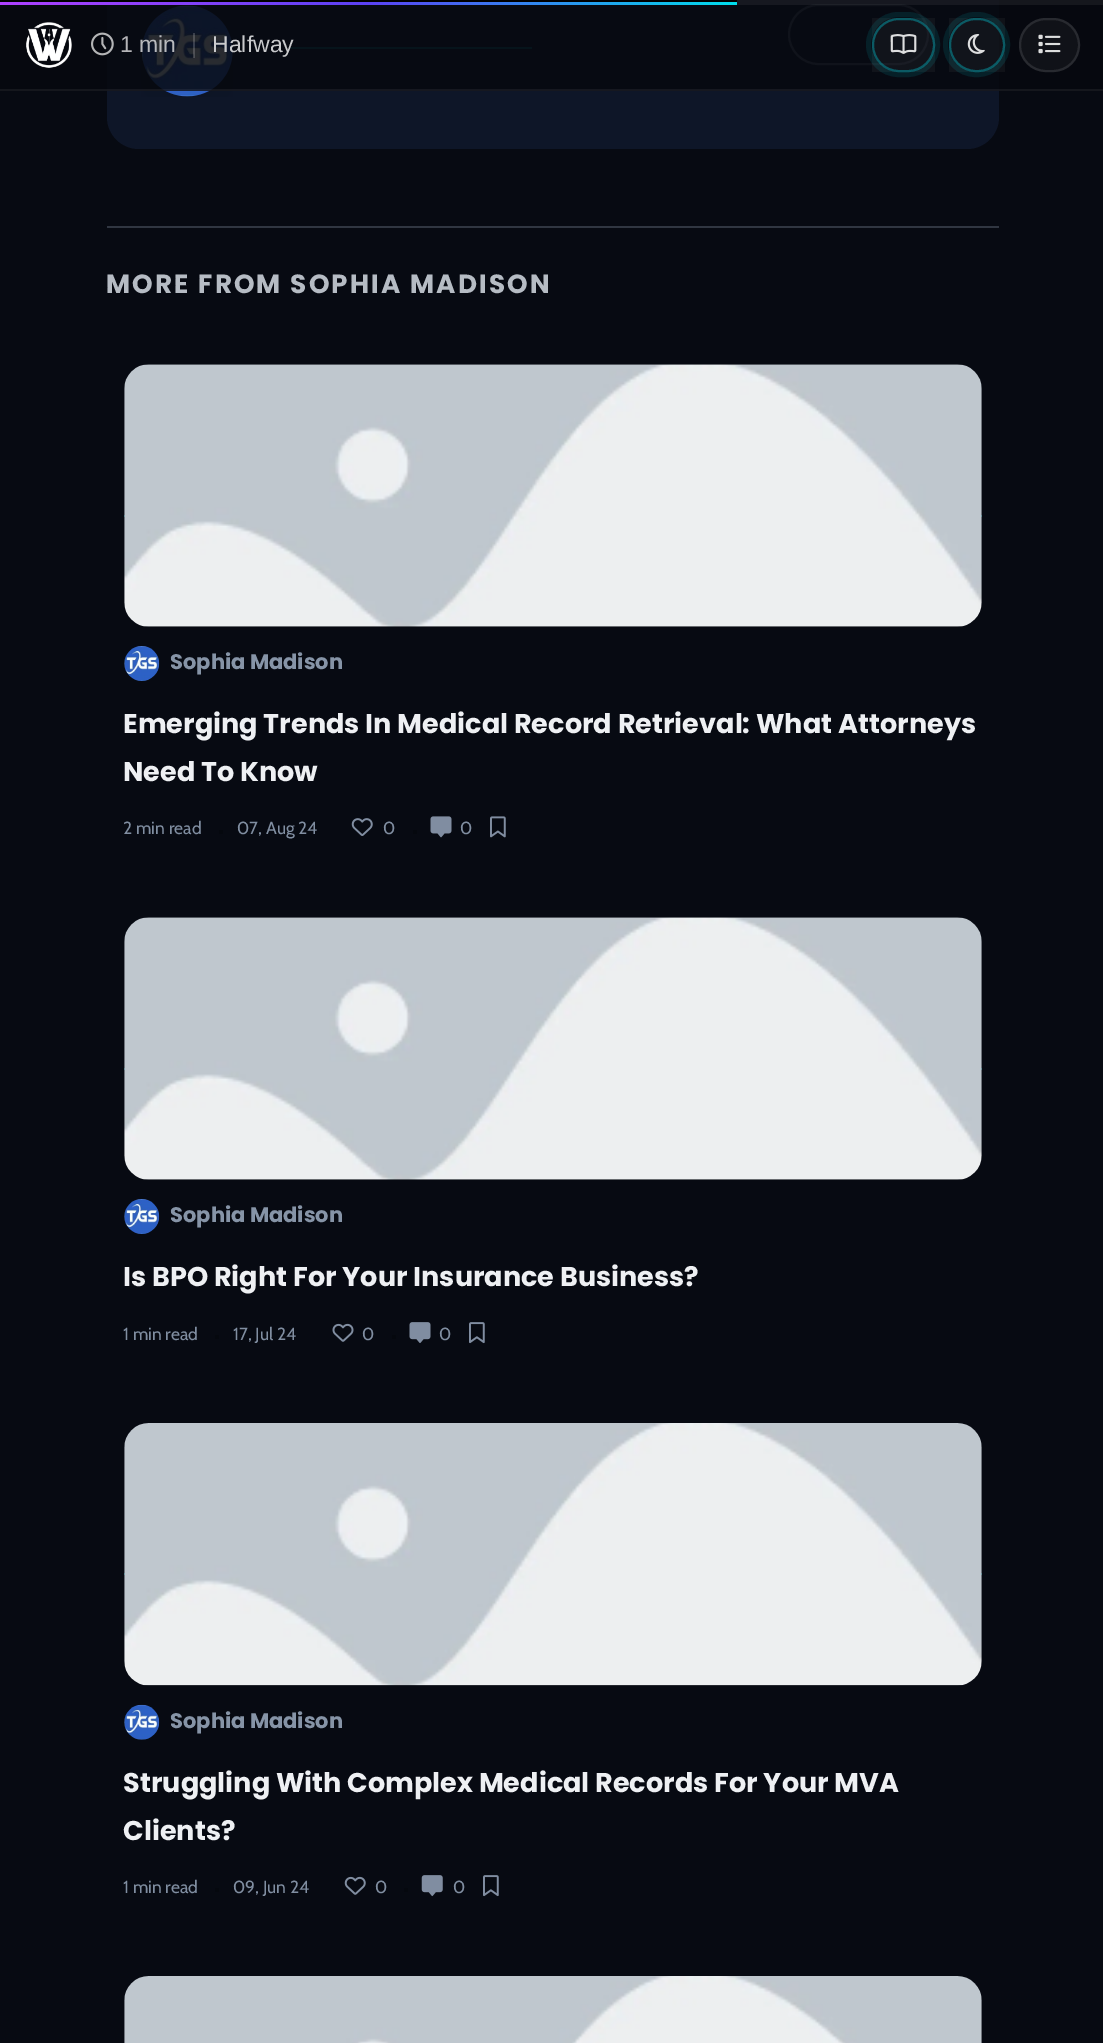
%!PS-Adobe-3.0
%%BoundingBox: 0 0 1103 2043
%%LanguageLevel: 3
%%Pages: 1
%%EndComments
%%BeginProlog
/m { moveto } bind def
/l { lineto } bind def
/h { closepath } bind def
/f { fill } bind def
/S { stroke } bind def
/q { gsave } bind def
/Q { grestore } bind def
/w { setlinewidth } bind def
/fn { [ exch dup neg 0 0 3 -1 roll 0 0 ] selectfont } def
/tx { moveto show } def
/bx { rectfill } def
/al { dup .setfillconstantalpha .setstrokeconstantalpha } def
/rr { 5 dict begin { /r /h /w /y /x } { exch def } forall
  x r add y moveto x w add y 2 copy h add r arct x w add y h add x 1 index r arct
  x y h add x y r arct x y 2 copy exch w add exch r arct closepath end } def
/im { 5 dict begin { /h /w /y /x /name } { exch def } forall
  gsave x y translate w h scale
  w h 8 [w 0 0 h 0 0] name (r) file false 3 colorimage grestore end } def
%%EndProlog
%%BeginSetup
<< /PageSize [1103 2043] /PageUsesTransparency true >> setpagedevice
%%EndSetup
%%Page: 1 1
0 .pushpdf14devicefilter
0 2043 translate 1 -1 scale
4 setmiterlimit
0.027 0.039 0.071 setrgbcolor
0 0 1103 2043 bx
0.055 0.086 0.157 setrgbcolor
107 -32 892 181 32 rr f
(image5.raw) 141 5 92 92 im
0.035 0.361 0.424 setrgbcolor
289 47 243 2 bx
0.294 0.337 0.416 setrgbcolor
2 w
789 5 139 59 29.5 rr S
0.86 al
0.024 0.031 0.055 setrgbcolor
0 0 1103 91 bx
0.06 al
1 setgray
737 0 366 5 bx
1 al
q 0 2 m 737 2 l 737 5 l 0 5 l h clip newpath
<< /ShadingType 2 /ColorSpace /DeviceRGB /Coords [0 2.6 737 2.6] /Extend [true true] /Function << /FunctionType 3 /Domain [0 1] /Functions [<< /FunctionType 2 /Domain [0 1] /C0 [0.686 0.251 1] /C1 [0.357 0.259 0.953] /N 1 >> << /FunctionType 2 /Domain [0 1] /C0 [0.357 0.259 0.953] /C1 [0 0.867 0.922] /N 1 >>] /Bounds [0.5] /Encode [0 1 0 1] >> >> shfill Q
0 setgray
0 0 737 2 bx
0.06 al
1 setgray
0 89 1103 2 bx
1 al
(image0.raw) 26 22 46 46 im
(image1.raw) 91 32 23 24 im
/LiberationSans-Regular 23 fn
0.71 0.71 0.722 setrgbcolor
(1) 120 52 tx
0.722 0.729 0.745 setrgbcolor
(min) 139 52 tx
0.18 al
1 setgray
193 33 2 25 bx
1 al
0.788 0.792 0.8 setrgbcolor
(Halfway) 212 52 tx
0.1 al
0 0.867 0.922 setrgbcolor
5 w
868.5 14.5 69 60 30 rr S
0.04 al
1 setgray
872 18 63 54 bx
0.35 al
0 0.867 0.922 setrgbcolor
2 w
873 19 61 52 26 rr S
1 al
(image2.raw) 890 34 27 20 im
0.1 al
5 w
945.5 14.5 62 60 30 rr S
0.04 al
1 setgray
949 18 56 54 bx
0.35 al
0 0.867 0.922 setrgbcolor
2 w
950 19 54 52 26 rr S
1 al
(image3.raw) 967 34 18 20 im
0.063 0.071 0.094 setrgbcolor
1019 18 61 54 27 rr f
0.1 al
1 setgray
1020 19 59 52 26 rr S
1 al
(image4.raw) 1038 34 23 20 im
0.188 0.212 0.255 setrgbcolor
107 226 892 2 bx
/Poppins-Bold 26.25 fn
0.714 0.737 0.769 setrgbcolor
106 293 m 2.1 0 (MORE FROM SOPHIA MADISON) ashow
0.02 0.329 0.369 setrgbcolor
124 515 858 2 bx
(image6.raw) 124 364 858 263 im
(image7.raw) 124 646 36 35 im
/Poppins-Bold 21 fn
0.525 0.58 0.655 setrgbcolor
(Sophia Madison) 170 669 tx
/Poppins-Bold 27.1 fn
0.933 0.941 0.953 setrgbcolor
(Emerging Trends In Medical Record Retrieval: What Attorneys) 123 733 tx
(Need To Know) 123 781 tx
/Cabin-Regular 17.5 fn
0.502 0.557 0.631 setrgbcolor
(2 min read) 123 834 tx
0.02 0.031 0.055 setrgbcolor
219 830 4 4 bx
0.502 0.557 0.631 setrgbcolor
(07, Aug 24) 237 834 tx
(image8.raw) 351 818 22 18 im
(0) 383 834 tx
0.02 0.031 0.055 setrgbcolor
413 830 4 4 bx
(image9.raw) 430 816 22 22 im
0.502 0.557 0.631 setrgbcolor
(0) 460 834 tx
(image10.raw) 490 816 16 22 im
0.02 0.329 0.369 setrgbcolor
124 1068 858 2 bx
(image6.raw) 124 917 858 263 im
(image7.raw) 124 1199 36 35 im
/Poppins-Bold 21 fn
0.525 0.58 0.655 setrgbcolor
(Sophia Madison) 170 1222 tx
/Poppins-Bold 27.1 fn
0.933 0.941 0.953 setrgbcolor
(Is BPO Right For Your Insurance Business?) 123 1286 tx
/Cabin-Regular 17.5 fn
0.502 0.557 0.631 setrgbcolor
(1 min read) 123 1340 tx
0.02 0.031 0.055 setrgbcolor
215 1335 4 4 bx
0.502 0.557 0.631 setrgbcolor
(17, Jul 24) 233 1340 tx
(image11.raw) 332 1323 22 19 im
(0) 362 1340 tx
0.02 0.031 0.055 setrgbcolor
392 1335 4 4 bx
(image12.raw) 409 1322 22 21 im
0.502 0.557 0.631 setrgbcolor
(0) 439 1340 tx
(image13.raw) 469 1322 16 22 im
0.02 0.329 0.369 setrgbcolor
124 1573 858 2 bx
(image14.raw) 124 1423 858 263 im
(image15.raw) 124 1704 36 36 im
/Poppins-Bold 21 fn
0.525 0.58 0.655 setrgbcolor
(Sophia Madison) 170 1728 tx
/Poppins-Bold 27.1 fn
0.933 0.941 0.953 setrgbcolor
(Struggling With Complex Medical Records For Your MVA) 123 1792 tx
(Clients?) 123 1840 tx
/Cabin-Regular 17.5 fn
0.502 0.557 0.631 setrgbcolor
(1 min read) 123 1893 tx
0.02 0.031 0.055 setrgbcolor
215 1888 4 4 bx
0.502 0.557 0.631 setrgbcolor
(09, Jun 24) 233 1893 tx
(image16.raw) 344 1876 22 19 im
(0) 375 1893 tx
0.02 0.031 0.055 setrgbcolor
404 1888 4 4 bx
(image17.raw) 421 1875 22 22 im
0.502 0.557 0.631 setrgbcolor
(0) 453 1893 tx
(image13.raw) 483 1875 16 22 im
(image18.raw) 124 1976 858 67 im
.poppdf14devicefilter showpage
%%EOF
